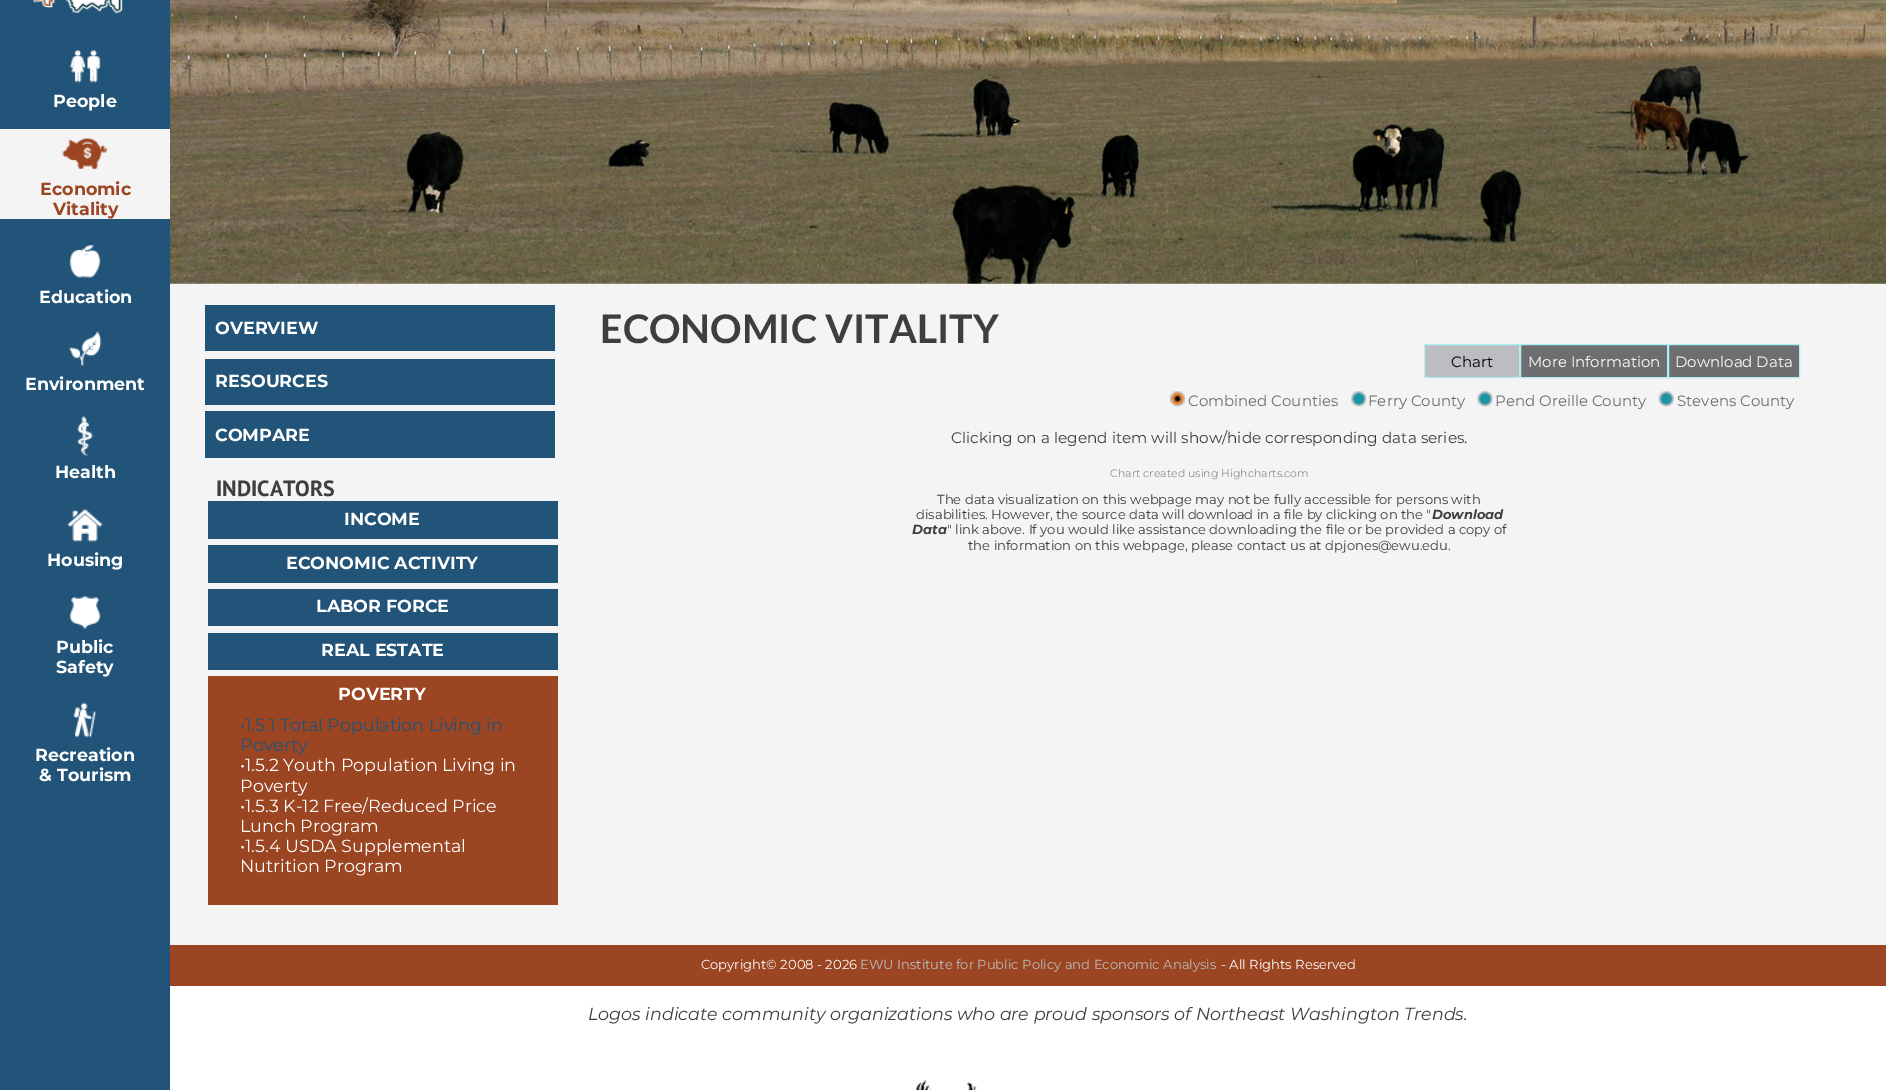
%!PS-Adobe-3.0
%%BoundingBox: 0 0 1886 1090
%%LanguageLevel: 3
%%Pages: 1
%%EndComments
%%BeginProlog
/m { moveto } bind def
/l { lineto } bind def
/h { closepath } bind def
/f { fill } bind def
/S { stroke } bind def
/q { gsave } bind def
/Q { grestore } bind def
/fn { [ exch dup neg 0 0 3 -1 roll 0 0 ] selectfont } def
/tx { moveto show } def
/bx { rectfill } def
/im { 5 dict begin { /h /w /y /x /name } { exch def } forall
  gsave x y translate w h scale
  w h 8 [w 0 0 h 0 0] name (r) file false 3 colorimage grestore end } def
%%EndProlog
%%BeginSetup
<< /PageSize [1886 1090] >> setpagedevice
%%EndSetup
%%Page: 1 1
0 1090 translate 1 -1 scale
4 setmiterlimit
0.957 setgray
0 0 1886 1090 bx
0.133 0.325 0.471 setrgbcolor
0 0 170 1090 bx
(image0.raw) 33 0 90 14 im
(image1.raw) 69 49 32 34 im
/Montserrat-Bold 17.5 fn
1 setgray
(People) 53 107 tx
0.957 setgray
0 129 170 90 bx
(image2.raw) 62 137 46 33 im
0.608 0.271 0.133 setrgbcolor
(Economic) 40 195 tx
(Vitality) 53 215 tx
(image3.raw) 69 244 32 34 im
1 setgray
(Education) 39 303 tx
(image4.raw) 68 331 34 36 im
(Environment) 25 390 tx
(image5.raw) 77 416 16 41 im
(Health) 55 478 tx
(image6.raw) 67 508 36 34 im
(Housing) 47 566 tx
(image7.raw) 69 596 32 33 im
(Public) 56 653 tx
(Safety) 56 673 tx
(image8.raw) 73 702 24 36 im
(Recreation) 35 761 tx
(& Tourism) 39 781 tx
(image9.raw) 170 0 1716 284 im
0.133 0.325 0.471 setrgbcolor
205 305 350 46 bx
1 setgray
(OVERVIEW) 215 334 tx
0.133 0.325 0.471 setrgbcolor
205 359 350 46 bx
1 setgray
(RESOURCES) 215 387 tx
0.133 0.325 0.471 setrgbcolor
205 411 350 47 bx
1 setgray
(COMPARE) 215 441 tx
/PTSans-Bold 22 fn
0.239 0.243 0.251 setrgbcolor
(INDICATORS) 216 496 tx
0.133 0.325 0.471 setrgbcolor
208 501 350 38 bx
/Montserrat-Bold 17.5 fn
1 setgray
(INCOME) 344 525 tx
0.133 0.325 0.471 setrgbcolor
208 545 350 38 bx
1 setgray
(ECONOMIC ACTIVITY) 286 569 tx
0.133 0.325 0.471 setrgbcolor
208 589 350 37 bx
1 setgray
(LABOR FORCE) 316 612 tx
0.133 0.325 0.471 setrgbcolor
208 633 350 37 bx
1 setgray
(REAL ESTATE) 321 656 tx
0.608 0.271 0.133 setrgbcolor
208 676 350 229 bx
1 setgray
(POVERTY) 338 700 tx
/Montserrat-Regular 17.5 fn
0.133 0.325 0.471 setrgbcolor
(•1.5.1 Total Population Living in) 240 731 tx
(Poverty) 240 751 tx
1 setgray
(•1.5.2 Youth Population Living in) 240 771 tx
(Poverty) 240 792 tx
(•1.5.3 K-12 Free/Reduced Price) 240 812 tx
(Lunch Program) 240 832 tx
(•1.5.4 USDA Supplemental) 240 852 tx
(Nutrition Program) 240 872 tx
/Lato-Bold 39.4 fn
0.239 0.243 0.251 setrgbcolor
(ECONOMIC VITALITY) 600 343 tx
0.733 0.741 0.753 setrgbcolor
1424.5 344.5 m 1519.5 344.5 l 1519.5 377.5 l 1424.5 377.5 l h q f Q
0.675 0.941 0.949 setrgbcolor
S
/Montserrat-Regular 15 fn
0 setgray
(Chart) 1451 367 tx
0.427 0.431 0.439 setrgbcolor
1520.5 344.5 m 1667.5 344.5 l 1667.5 377.5 l 1520.5 377.5 l h q f Q
0.675 0.941 0.949 setrgbcolor
S
1 setgray
(More Information) 1528 367 tx
0.427 0.431 0.439 setrgbcolor
1668.5 344.5 m 1799.5 344.5 l 1799.5 377.5 l 1668.5 377.5 l h q f Q
0.675 0.941 0.949 setrgbcolor
S
1 setgray
(Download Data) 1675 367 tx
(image10.raw) 1170 391 15 16 im
0.427 0.431 0.439 setrgbcolor
(Combined Counties) 1188 406 tx
(image11.raw) 1351 391 16 16 im
(Ferry County) 1368 406 tx
(image12.raw) 1477 391 16 16 im
(Pend Oreille County) 1495 406 tx
(image13.raw) 1658 391 16 16 im
(Stevens County) 1677 406 tx
/Montserrat-Regular 15.3 fn
0.239 0.243 0.251 setrgbcolor
(Clicking on a legend item will show/hide corresponding data series.) 951 443 tx
/Montserrat-Regular 10.9 fn
0.565 setgray
(Chart created using Highcharts.com) 1110 477 tx
/Montserrat-Regular 13.1 fn
0.239 0.243 0.251 setrgbcolor
(The data visualization on this webpage may not be fully accessible for persons with) 937 504 tx
(disabilities. However, the source data will download in a file by clicking on the ") 916 519 tx
/Montserrat-BoldItalic 13.1 fn
(Download) 1432 519 tx
(Data) 912 534 tx
/Montserrat-Regular 13.1 fn
(" link above. If you would like assistance downloading the file or be provided a copy of) 947 534 tx
(the information on this webpage, please contact us at dpjones@ewu.edu.) 968 550 tx
0.608 0.271 0.133 setrgbcolor
170 945 1716 41 bx
1 setgray
(Copyright© 2008 - 2026) 701 969 tx
0.733 setgray
(EWU Institute for Public Policy and Economic Analysis) 860 969 tx
1 setgray
(- All Rights Reserved) 1221 969 tx
170 986 1716 104 bx
/Montserrat-Italic 17.5 fn
0.239 0.243 0.251 setrgbcolor
(Logos indicate community organizations who are proud sponsors of Northeast Washington Trends.) 588 1020 tx
(image14.raw) 916 1080 61 10 im
showpage
%%EOF
